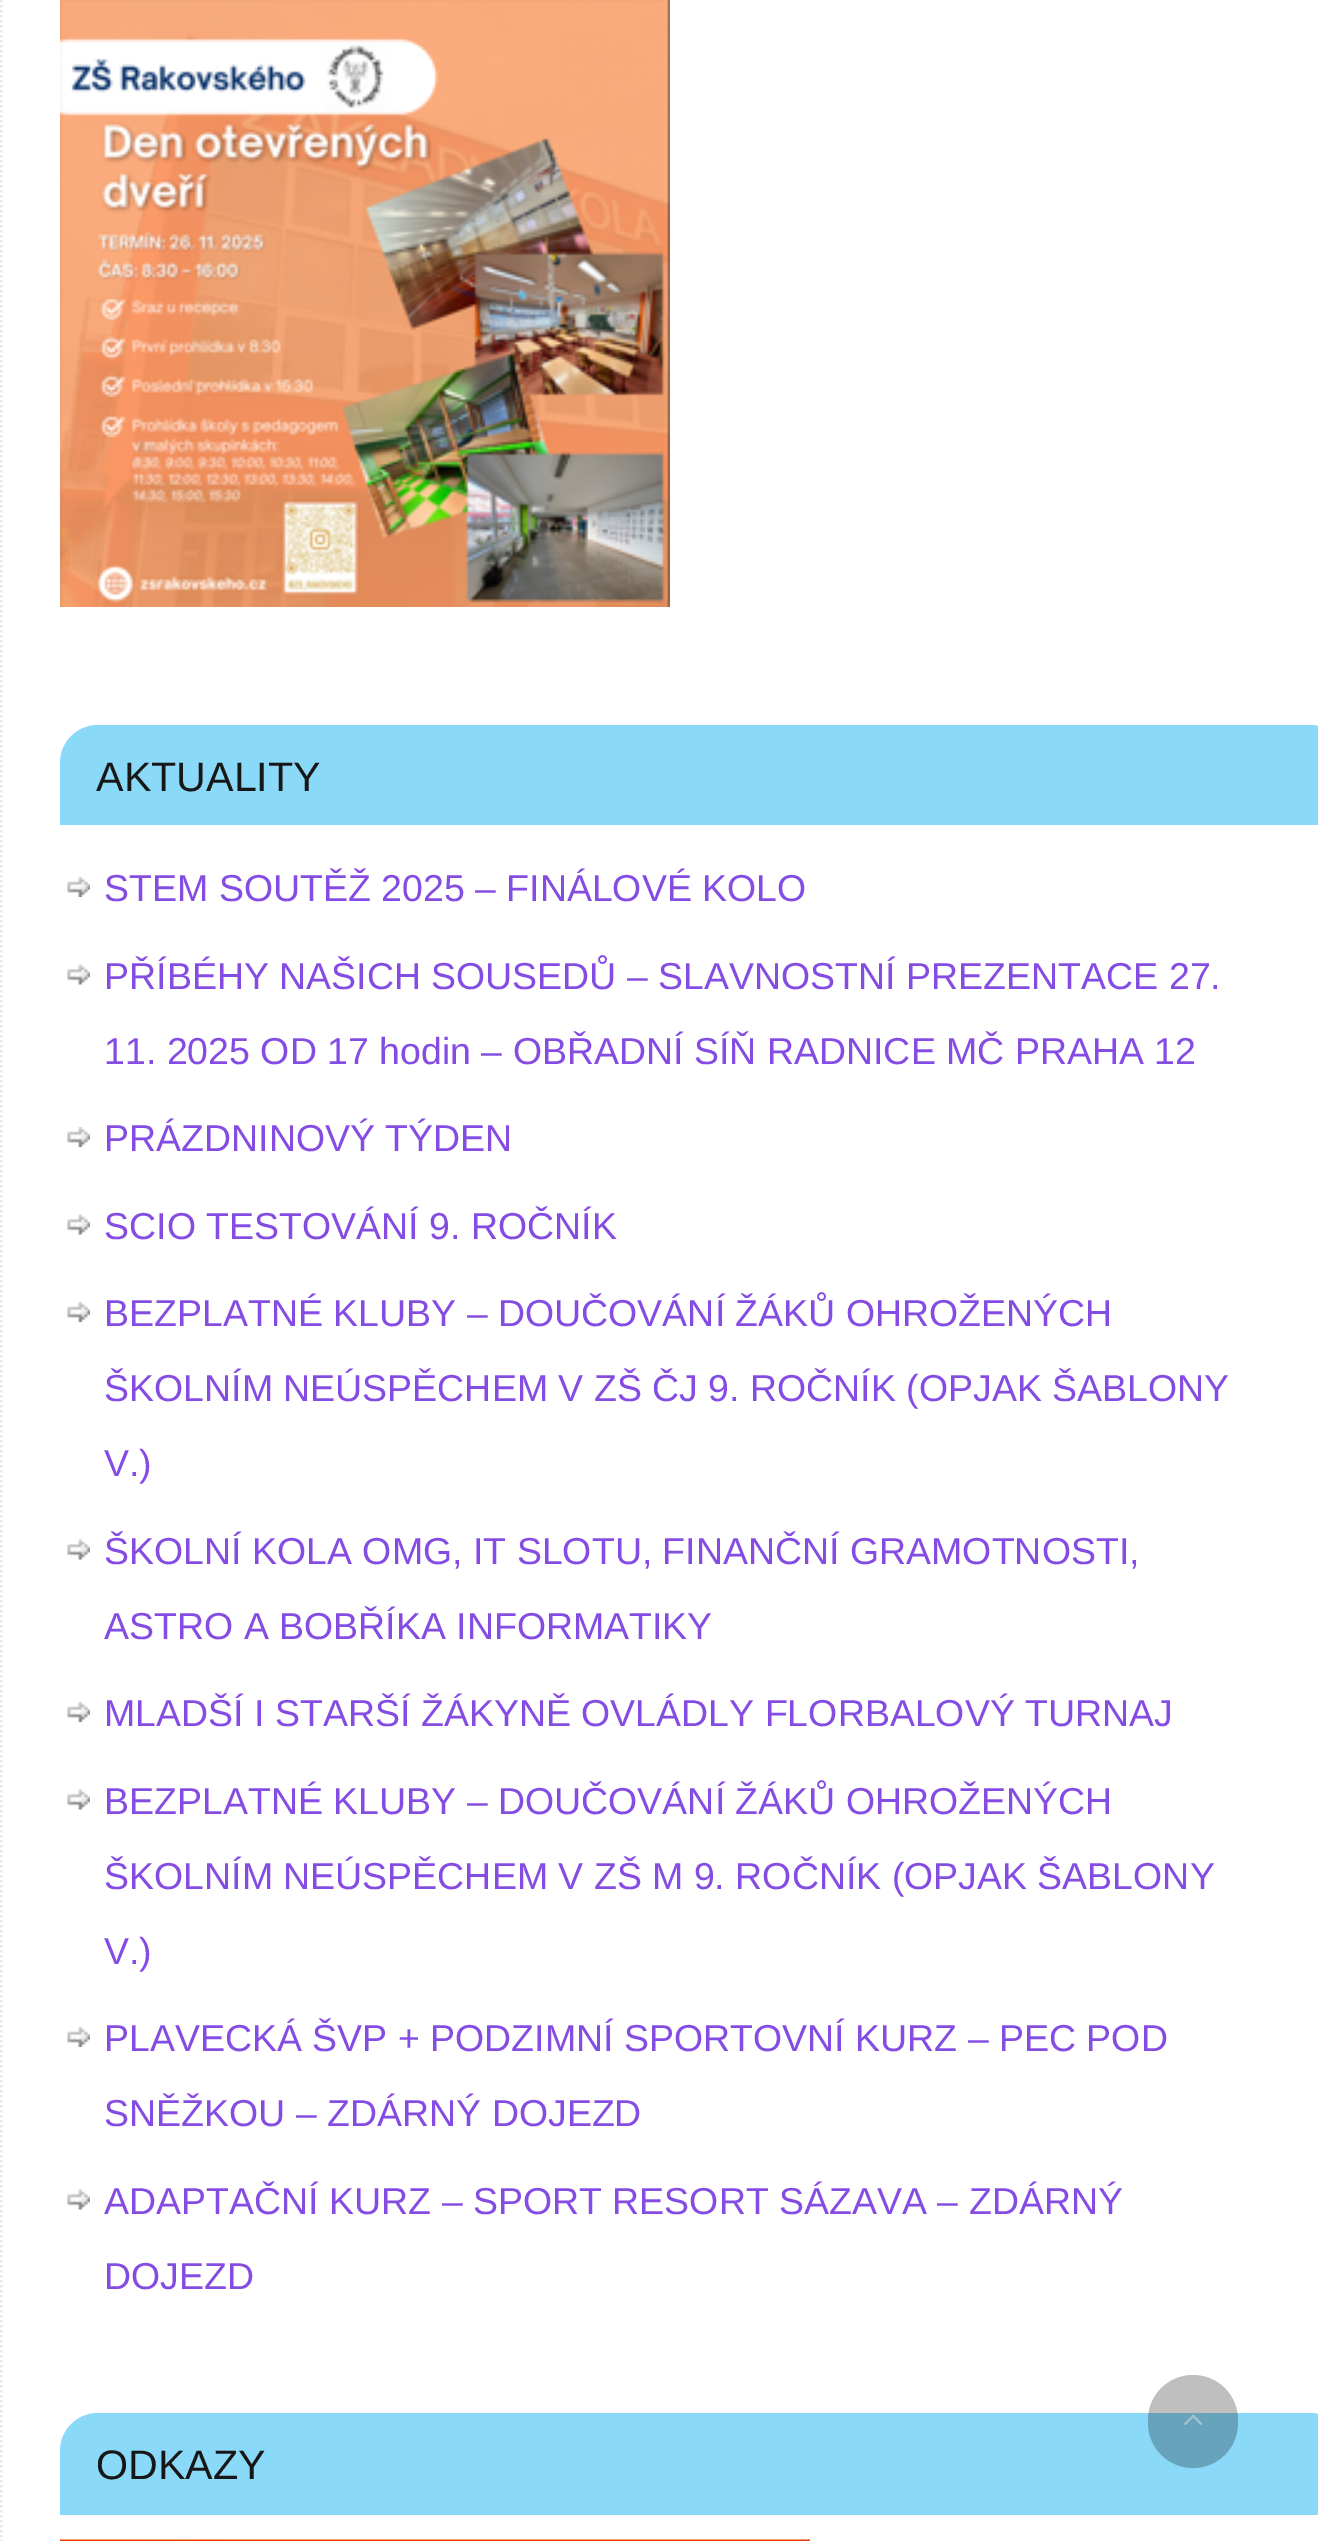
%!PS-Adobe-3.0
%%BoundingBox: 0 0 1318 2541
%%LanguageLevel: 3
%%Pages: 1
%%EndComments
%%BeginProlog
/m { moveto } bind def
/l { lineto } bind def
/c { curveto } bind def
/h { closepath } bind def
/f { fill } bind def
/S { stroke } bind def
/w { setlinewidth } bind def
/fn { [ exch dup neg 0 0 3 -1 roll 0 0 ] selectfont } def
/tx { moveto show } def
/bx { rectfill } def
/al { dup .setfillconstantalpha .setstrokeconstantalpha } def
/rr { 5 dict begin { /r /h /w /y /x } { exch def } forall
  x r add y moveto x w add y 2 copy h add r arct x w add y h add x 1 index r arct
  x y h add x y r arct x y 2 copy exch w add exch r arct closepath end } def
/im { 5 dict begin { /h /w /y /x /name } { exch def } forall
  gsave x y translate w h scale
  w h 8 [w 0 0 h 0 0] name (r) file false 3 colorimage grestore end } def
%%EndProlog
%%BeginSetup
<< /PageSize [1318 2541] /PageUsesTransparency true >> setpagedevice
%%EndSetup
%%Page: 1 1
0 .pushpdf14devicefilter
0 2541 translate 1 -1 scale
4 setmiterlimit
1 setgray
0 0 1318 2541 bx
0.918 setgray
2.5 w
[2.5 2.5] 0 setdash
1 -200 m 1 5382.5 l S
(image0.raw) 60 0 610 607 im
0.541 0.851 0.976 setrgbcolor
98 725 m 1310 725 l 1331 725 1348 742 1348 763 c 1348 825 l 60 825 l 60 763 l 60 742 77 725 98 725 c h f
/LiberationSans-Regular 41.25 fn
0.09 setgray
(AKTUALITY) 96 791 tx
(image1.raw) 67 877 23 20 im
/LiberationSans-Regular 37.5 fn
0.522 0.298 0.89 setrgbcolor
(STEM SOUTĚŽ 2025 – FINÁLOVÉ KOLO) 104 901 tx
(image2.raw) 67 964 23 21 im
(PŘÍBÉHY NAŠICH SOUSEDŮ – SLAVNOSTNÍ PREZENTACE 27.) 104 989 tx
(11. 2025 OD 17 hodin – OBŘADNÍ SÍŇ RADNICE MČ PRAHA 12) 104 1064 tx
(image1.raw) 67 1127 23 20 im
(PRÁZDNINOVÝ TÝDEN) 104 1151 tx
(image2.raw) 67 1214 23 21 im
(SCIO TESTOVÁNÍ 9. ROČNÍK) 104 1239 tx
(image3.raw) 67 1302 23 20 im
(BEZPLATNÉ KLUBY – DOUČOVÁNÍ ŽÁKŮ OHROŽENÝCH) 104 1326 tx
(ŠKOLNÍM NEÚSPĚCHEM V ZŠ ČJ 9. ROČNÍK \(OPJAK ŠABLONY) 104 1401 tx
(V.\)) 104 1476 tx
(image2.raw) 67 1539 23 21 im
(ŠKOLNÍ KOLA OMG, IT SLOTU, FINANČNÍ GRAMOTNOSTI,) 104 1564 tx
(ASTRO A BOBŘÍKA INFORMATIKY) 104 1639 tx
(image1.raw) 67 1702 23 20 im
(MLADŠÍ I STARŠÍ ŽÁKYNĚ OVLÁDLY FLORBALOVÝ TURNAJ) 104 1726 tx
(image2.raw) 67 1789 23 21 im
(BEZPLATNÉ KLUBY – DOUČOVÁNÍ ŽÁKŮ OHROŽENÝCH) 104 1814 tx
(ŠKOLNÍM NEÚSPĚCHEM V ZŠ M 9. ROČNÍK \(OPJAK ŠABLONY) 104 1889 tx
(V.\)) 104 1964 tx
(image1.raw) 67 2027 23 20 im
(PLAVECKÁ ŠVP + PODZIMNÍ SPORTOVNÍ KURZ – PEC POD) 104 2051 tx
(SNĚŽKOU – ZDÁRNÝ DOJEZD) 104 2126 tx
(image2.raw) 67 2189 23 21 im
(ADAPTAČNÍ KURZ – SPORT RESORT SÁZAVA – ZDÁRNÝ) 104 2214 tx
(DOJEZD) 104 2289 tx
0.541 0.851 0.976 setrgbcolor
98 2413 m 1310 2413 l 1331 2413 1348 2430 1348 2451 c 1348 2515 l 60 2515 l 60 2451 l 60 2430 77 2413 98 2413 c h f
/LiberationSans-Regular 41.25 fn
0.09 setgray
(ODKAZY) 96 2479 tx
(image4.raw) 60 2539 750 2 im
0.25 al
0 setgray
1148 2375 90 93 45 rr f
1 al
(image5.raw) 1184 2414 19 12 im
.poppdf14devicefilter showpage
%%EOF
